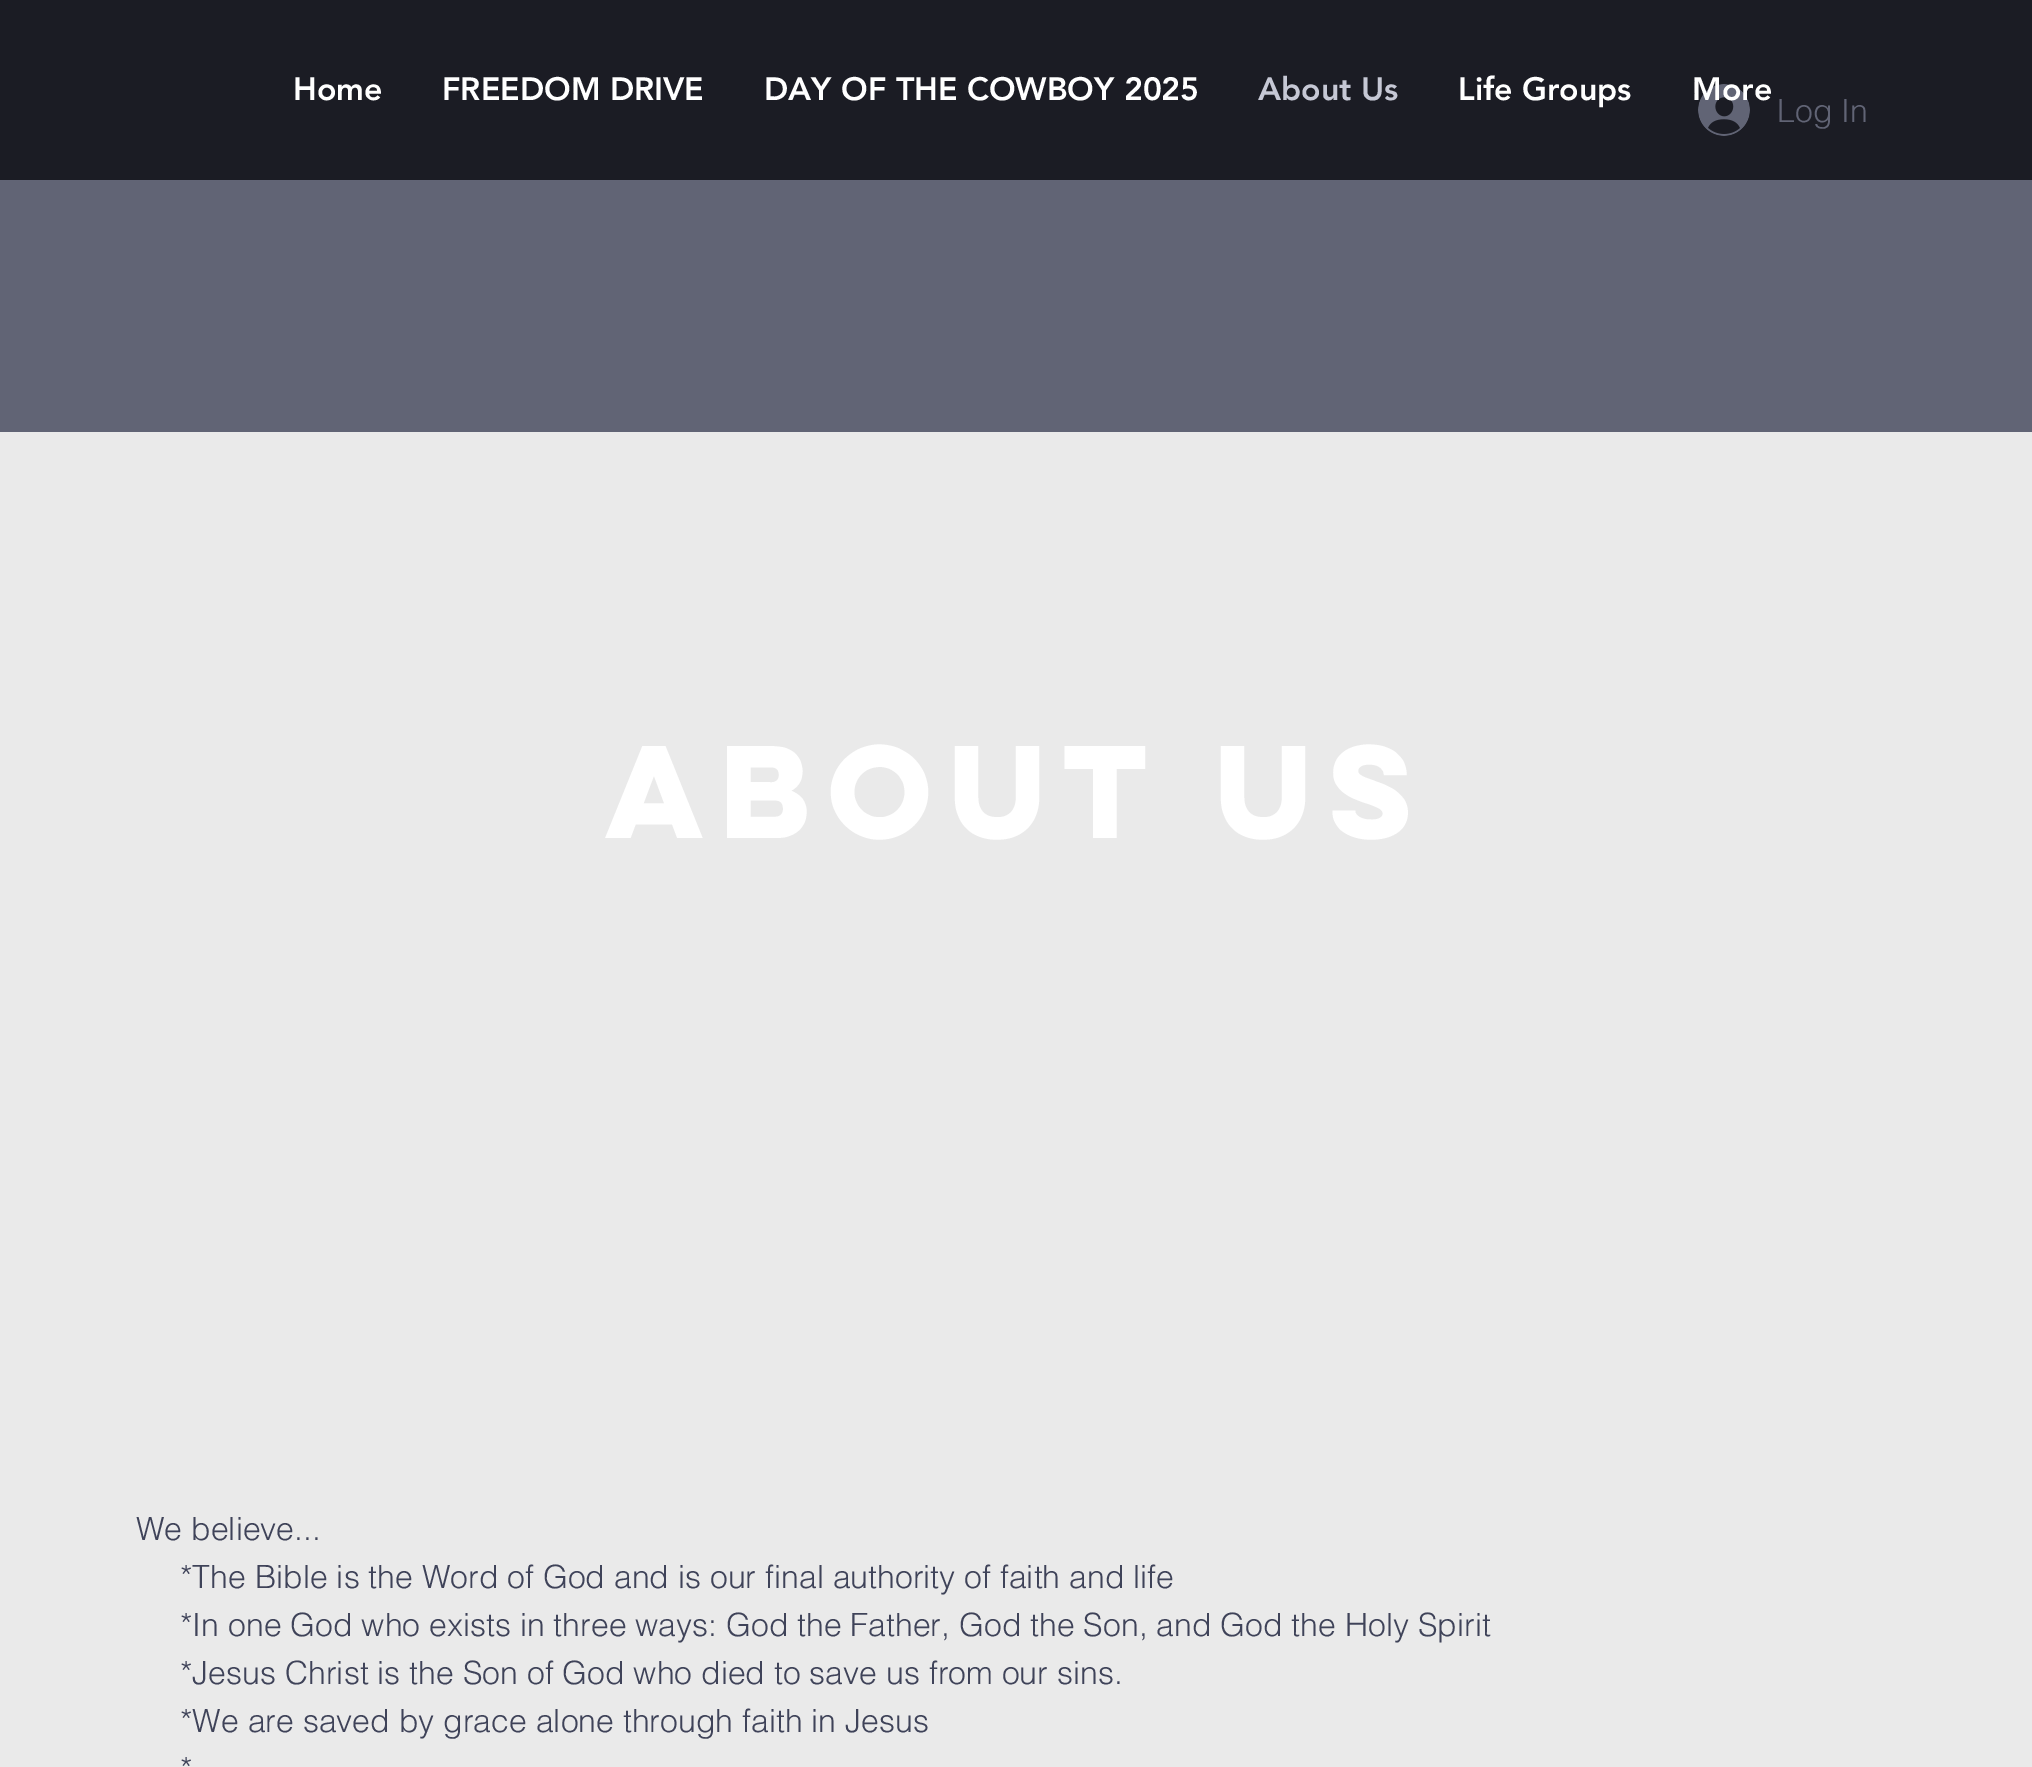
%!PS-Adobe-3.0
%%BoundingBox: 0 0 2032 1767
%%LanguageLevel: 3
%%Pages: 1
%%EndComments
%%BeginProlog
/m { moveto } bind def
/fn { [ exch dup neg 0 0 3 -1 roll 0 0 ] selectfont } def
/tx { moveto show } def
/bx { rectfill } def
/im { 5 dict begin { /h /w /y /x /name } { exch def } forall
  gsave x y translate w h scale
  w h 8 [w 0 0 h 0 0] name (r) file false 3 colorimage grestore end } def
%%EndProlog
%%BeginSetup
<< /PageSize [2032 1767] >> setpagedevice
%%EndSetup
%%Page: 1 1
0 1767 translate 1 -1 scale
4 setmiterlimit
0.918 setgray
0 0 2032 1767 bx
0.106 0.11 0.141 setrgbcolor
0 0 2032 180 bx
/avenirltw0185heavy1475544-Black 32 fn
1 setgray
(Home) 293 100 tx
(FREEDOM DRIVE) 442 100 tx
(DAY OF THE COWBOY 2025) 764 100 tx
0.776 0.784 0.835 setrgbcolor
(About Us) 1258 100 tx
1 setgray
(Life Groups) 1458 100 tx
(image0.raw) 1698 84 52 52 im
(More) 1692 100 tx
/helvetica-Light 32 fn
0.38 0.392 0.459 setrgbcolor
(Log In) 1777 122 tx
0 180 2032 252 bx
/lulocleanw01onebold-Bold 118 fn
1 setgray
605 838 m -9.5 0 (About us) ashow
/helvetica-Light 32 fn
0.247 0.263 0.349 setrgbcolor
(We believe...) 136 1540 tx
(*The Bible is the Word of God and is our final authority of faith and life) 180 1588 tx
(*In one God who exists in three ways: God the Father, God the Son, and God the Holy Spirit) 180 1636 tx
(*Jesus Christ is the Son of God who died to save us from our sins.) 180 1684 tx
(*We are saved by grace alone through faith in Jesus) 180 1732 tx
(*) 180 1780 tx
showpage
%%EOF
